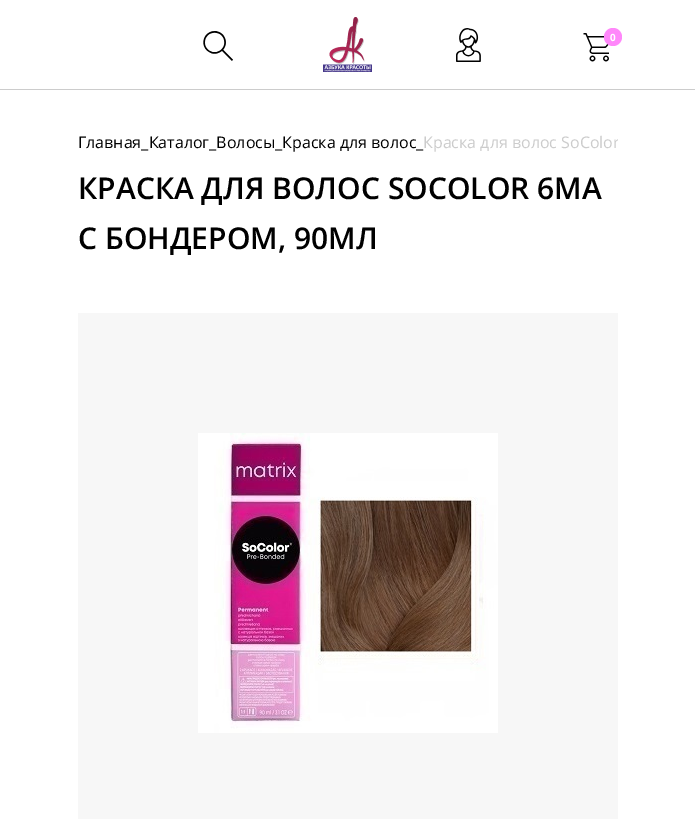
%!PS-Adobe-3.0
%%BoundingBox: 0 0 695 819
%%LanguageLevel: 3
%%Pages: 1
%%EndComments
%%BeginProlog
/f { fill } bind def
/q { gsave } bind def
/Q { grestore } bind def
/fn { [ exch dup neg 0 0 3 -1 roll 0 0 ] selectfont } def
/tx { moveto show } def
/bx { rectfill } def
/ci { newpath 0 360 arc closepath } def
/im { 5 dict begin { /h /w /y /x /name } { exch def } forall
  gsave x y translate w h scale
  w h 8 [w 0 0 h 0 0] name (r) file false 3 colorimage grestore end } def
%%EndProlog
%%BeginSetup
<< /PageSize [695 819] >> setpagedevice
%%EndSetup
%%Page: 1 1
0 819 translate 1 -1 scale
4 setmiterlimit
1 setgray
0 0 695 819 bx
0.8 setgray
0 89 695 1 bx
(image0.raw) 203 31 30 30 im
(image1.raw) 323 17 49 55 im
(image2.raw) 456 28 25 34 im
(image3.raw) 583 33 26 29 im
1 0.529 0.98 setrgbcolor
613 37 9 ci f
/OpenSans-Bold 10 fn
1 setgray
(0) 610 41 tx
/OpenSans-Regular 16 fn
0 setgray
(Главная_Каталог_Волосы_Краска для волос_) 78 148 tx
q
78 131 540 22 rectclip
0.8 setgray
(Краска для волос SoColor) 423 148 tx
Q
/OpenSans-SemiBold 30 fn
(КРАСКА ДЛЯ ВОЛОС SOCOLOR 6MA) 78 199 tx
(С БОНДЕРОМ, 90МЛ) 78 249 tx
0.969 setgray
78 313 540 506 bx
(image4.raw) 198 433 300 300 im
showpage
%%EOF
